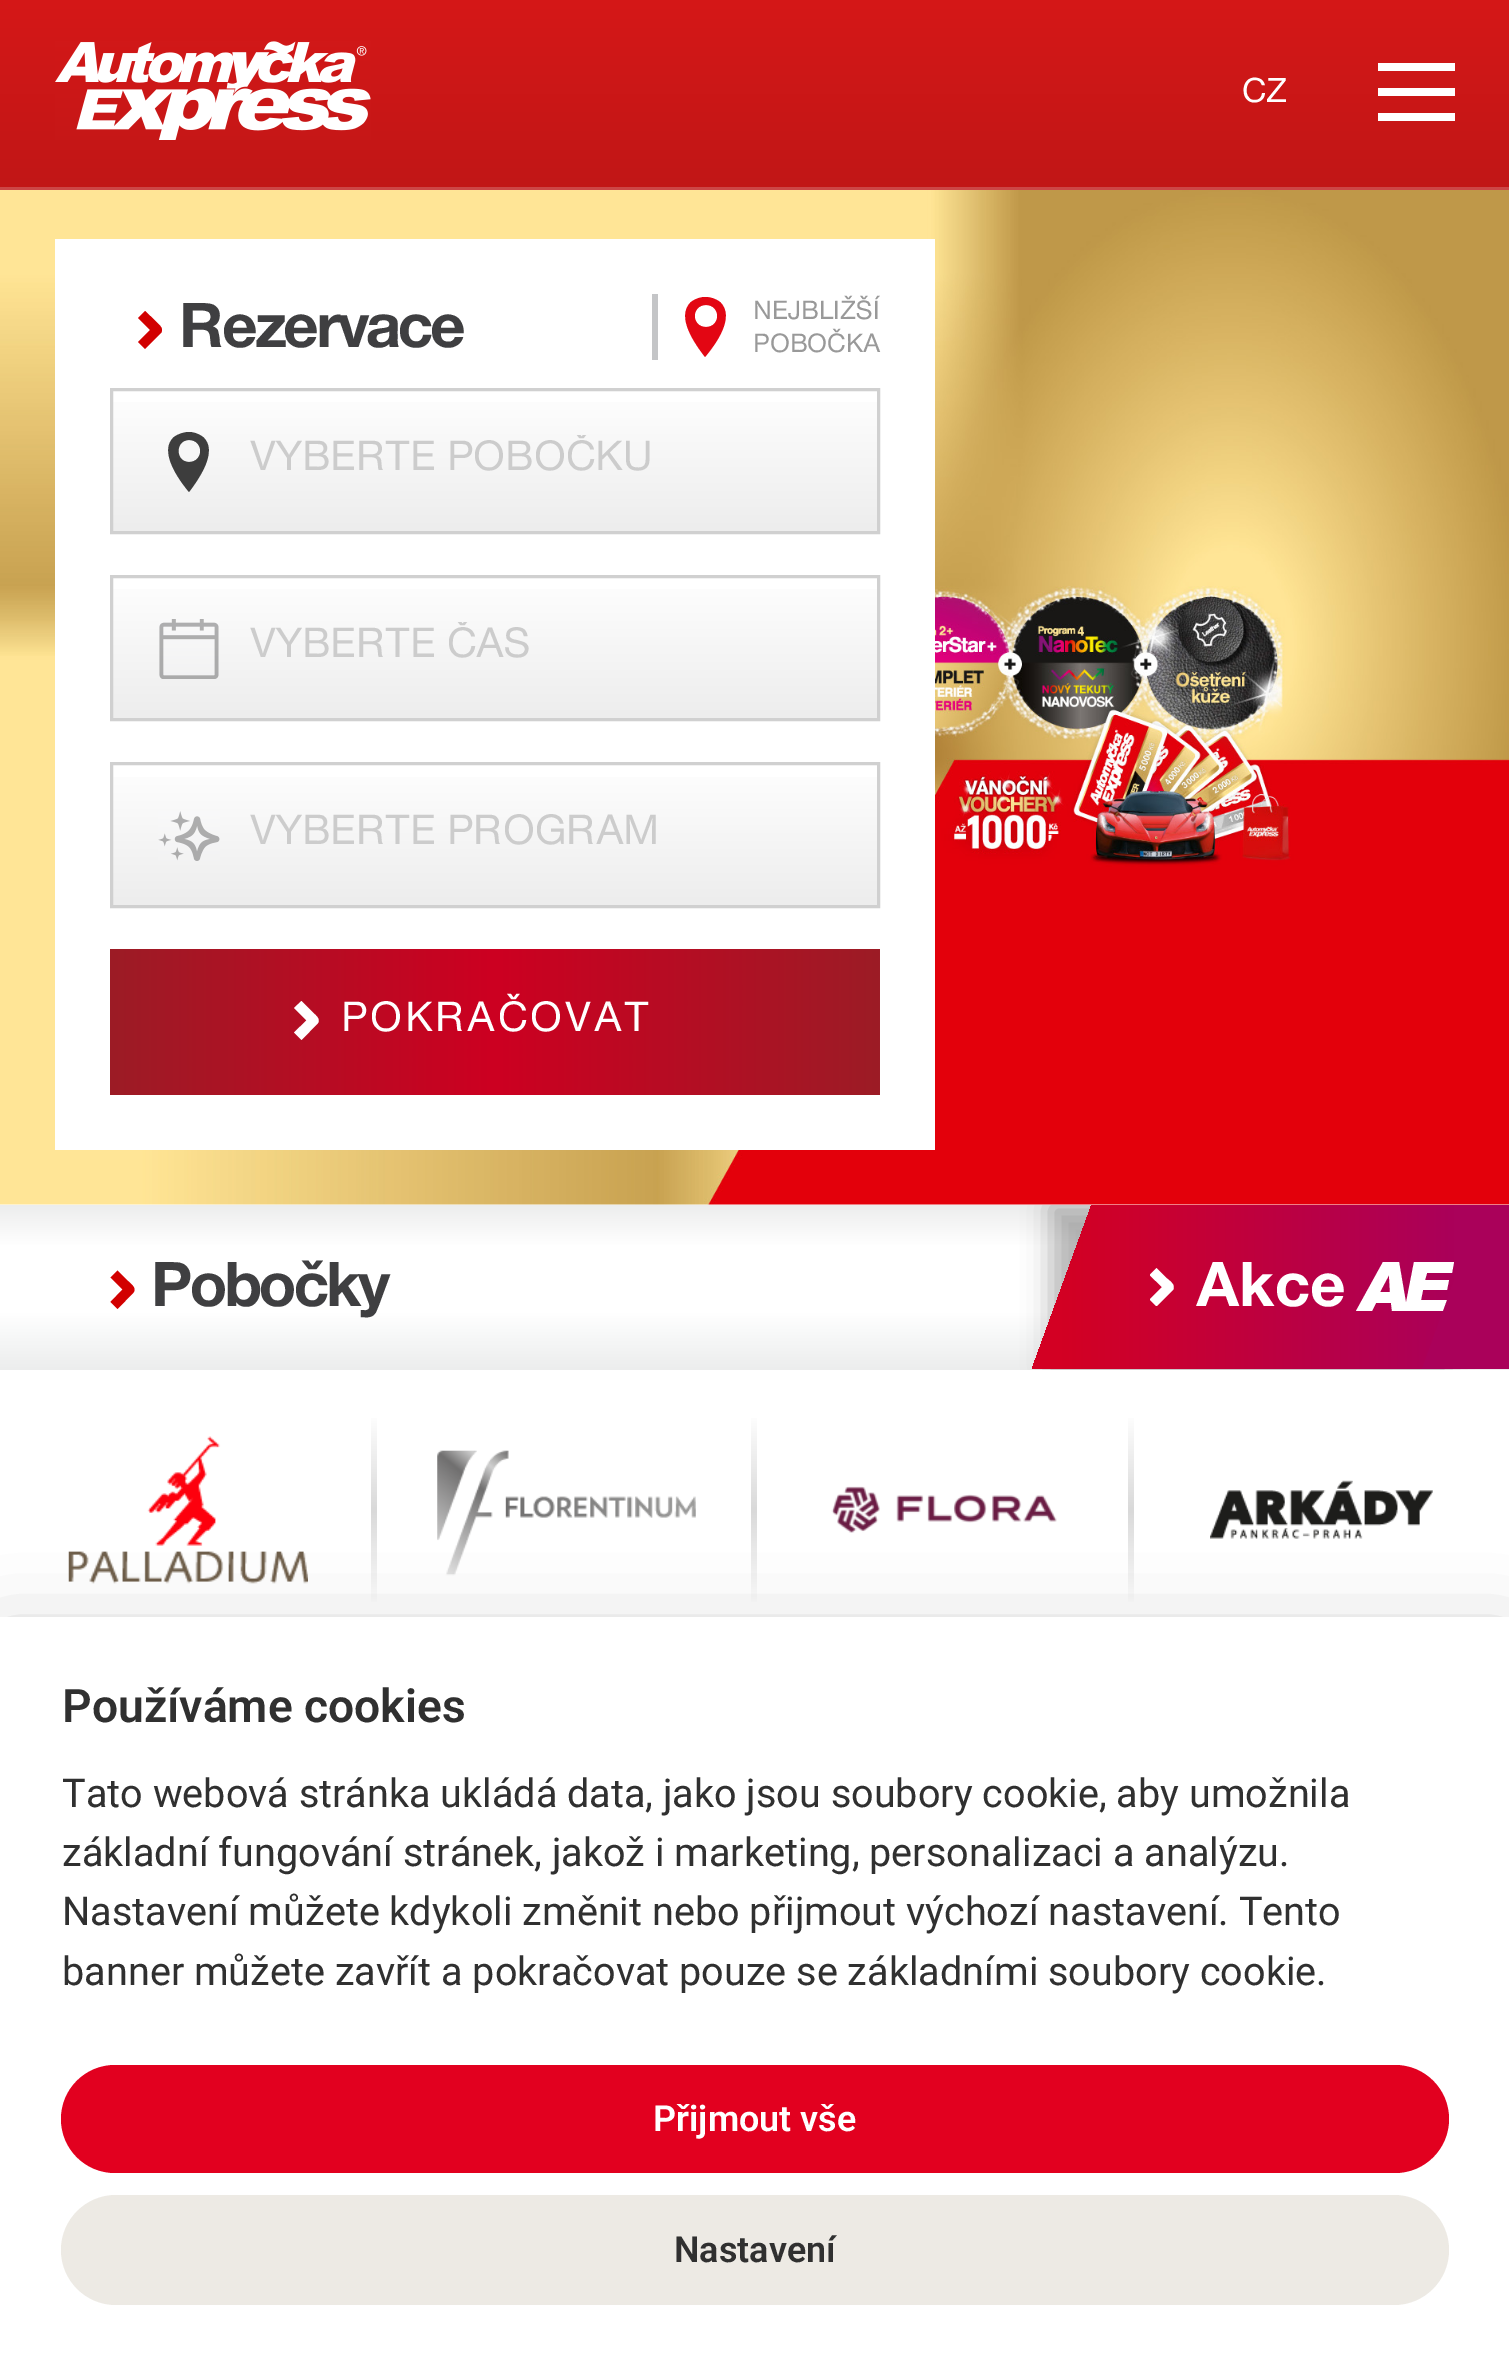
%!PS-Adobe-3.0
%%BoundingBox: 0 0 1509 2363
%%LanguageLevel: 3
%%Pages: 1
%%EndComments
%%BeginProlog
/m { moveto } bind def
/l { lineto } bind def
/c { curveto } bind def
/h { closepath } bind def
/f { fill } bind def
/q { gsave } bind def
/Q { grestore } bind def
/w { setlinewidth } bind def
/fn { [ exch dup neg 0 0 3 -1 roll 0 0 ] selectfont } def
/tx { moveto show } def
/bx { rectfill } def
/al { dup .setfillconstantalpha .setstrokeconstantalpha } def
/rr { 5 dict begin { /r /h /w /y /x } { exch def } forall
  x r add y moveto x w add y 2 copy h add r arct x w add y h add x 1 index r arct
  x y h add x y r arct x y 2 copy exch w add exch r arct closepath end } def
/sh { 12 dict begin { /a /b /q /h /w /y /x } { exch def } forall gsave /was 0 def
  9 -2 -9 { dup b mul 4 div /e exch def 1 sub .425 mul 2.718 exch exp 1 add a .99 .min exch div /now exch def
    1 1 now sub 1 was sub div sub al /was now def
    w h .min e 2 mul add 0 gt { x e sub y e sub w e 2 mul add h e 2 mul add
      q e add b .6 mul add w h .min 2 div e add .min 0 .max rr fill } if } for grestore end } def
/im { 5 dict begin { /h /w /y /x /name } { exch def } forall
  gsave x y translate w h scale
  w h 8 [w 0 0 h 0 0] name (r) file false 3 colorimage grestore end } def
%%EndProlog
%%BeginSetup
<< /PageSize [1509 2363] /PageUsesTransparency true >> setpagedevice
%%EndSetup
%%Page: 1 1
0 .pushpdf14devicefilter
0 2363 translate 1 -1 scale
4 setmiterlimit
1 setgray
0 0 1509 2363 bx
q 0 0 m 1509 0 l 1509 187 l 0 187 l h clip newpath
<< /ShadingType 2 /ColorSpace /DeviceRGB /Coords [755 0 755 187] /Extend [true true] /Function << /FunctionType 2 /Domain [0 1] /C0 [0.835 0.094 0.094] /C1 [0.757 0.086 0.086] /N 1 >> >> shfill Q
0.8 0.275 0.275 setrgbcolor
0 187 1509 3 bx
(image0.raw) 55 41 316 99 im
/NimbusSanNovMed-Regular 36 fn
1 setgray
(CZ) 1242 102 tx
1378 63 77 8 bx
1378 88 77 8 bx
1378 113 77 8 bx
(image1.raw) 0 190 1509 1015 im
55 239 880 911 bx
0.824 0 0 setrgbcolor
145 349 m 161 333 l 164.5 328 158 324 155.5 321 c 145 311 l 138 318 l 150 330 l 138 342 l h f
/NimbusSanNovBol-Regular 66 fn
0.247 0.247 0.255 setrgbcolor
179 347 m -2.75 0 (Rezervace) ashow
0.769 0.773 0.78 setrgbcolor
652 294 6 66 bx
0.89 0.024 0.075 setrgbcolor
705 297 m 700 297 695 299 691 302 c 675 317 696 345 705 357 c 715 345 736 317 720 302 c 716 299 711 297 705 297 c h 706 327 m 691 327 691 305 706 305 c 721 305 721 327 706 327 c h f
/NimbusSanNovMed-Regular 27.5 fn
0.6 setgray
(NEJBLIŽŠÍ) 753 319 tx
(POBOČKA) 753 352 tx
q 113 402 m 877 402 l 877 531 l 113 531 l h clip newpath
<< /ShadingType 2 /ColorSpace /DeviceRGB /Coords [495 390 495 531] /Extend [true true] /Function << /FunctionType 2 /Domain [0 1] /C0 [0.996 0.996 1] /C1 [0.929 0.929 0.929] /N 1 >> >> shfill Q
0.816 setgray
3 w
111.5 389.5 767 143 rectstroke
0.75 al
0 setgray
189 432 m 184 432 178 434 174 437 c 158 451 179 480 189 492 c 198 480 219 451 203 437 c 199 434 194 432 189 432 c h 189 462 m 175 462 175 440 189 440 c 204 440 204 462 189 462 c h f
q
250 435 627 52 rectclip
/NimbusSanNovMed-Regular 44 fn
1 al
0.8 setgray
(VYBERTE POBOČKU) 250 470 tx
Q
1 al
q 113 589 m 877 589 l 877 718 l 113 718 l h clip newpath
<< /ShadingType 2 /ColorSpace /DeviceRGB /Coords [495 577 495 718] /Extend [true true] /Function << /FunctionType 2 /Domain [0 1] /C0 [0.996 0.996 1] /C1 [0.929 0.929 0.929] /N 1 >> >> shfill Q
0.816 setgray
111.5 576.5 767 143 rectstroke
(image2.raw) 159 619 60 60 im
q
250 622 627 52 rectclip
/NimbusSanNovMed-Regular 44 fn
0.8 setgray
(VYBERTE ČAS) 250 657 tx
Q
q 113 777 m 877 777 l 877 905 l 113 905 l h clip newpath
<< /ShadingType 2 /ColorSpace /DeviceRGB /Coords [495 765 495 905] /Extend [true true] /Function << /FunctionType 2 /Domain [0 1] /C0 [0.996 0.996 1] /C1 [0.929 0.929 0.929] /N 1 >> >> shfill Q
111.5 763.5 767 143 rectstroke
(image3.raw) 158 811 62 50 im
/NimbusSanNovMed-Regular 44 fn
0.8 setgray
(VYBERTE PROGRAM) 250 844 tx
q 110 949 m 880 949 l 880 1095 l 110 1095 l h clip newpath
<< /ShadingType 2 /ColorSpace /DeviceRGB /Coords [110 1022 880 1022] /Extend [true true] /Function << /FunctionType 3 /Domain [0 1] /Functions [<< /FunctionType 2 /Domain [0 1] /C0 [0.612 0.11 0.149] /C1 [0.804 0 0.129] /N 1 >> << /FunctionType 2 /Domain [0 1] /C0 [0.804 0 0.129] /C1 [0.612 0.11 0.149] /N 1 >>] /Bounds [0.5] /Encode [0 1 0 1] >> >> shfill Q
1 setgray
301.5 1040 m 318 1023 l 321 1018.5 314.5 1014.5 312 1011.5 c 301.5 1001 l 294 1008 l 306.5 1020.5 l 294 1032.5 l h f
341 1031 m 2.75 0 (POKRAČOVAT) ashow
q 0 1205 m 1509 1205 l 1509 1370 l 0 1370 l h clip newpath
<< /ShadingType 2 /ColorSpace /DeviceRGB /Coords [755 1204 755 1370] /Extend [true true] /Function << /FunctionType 3 /Domain [0 1] /Functions [<< /FunctionType 2 /Domain [0 1] /C0 [0.925 0.929 0.929] /C1 [1 1 1] /N 1 >> << /FunctionType 2 /Domain [0 1] /C0 [1 1 1] /C1 [1 1 1] /N 1 >> << /FunctionType 2 /Domain [0 1] /C0 [1 1 1] /C1 [0.925 0.929 0.929] /N 1 >>] /Bounds [0.25 0.65] /Encode [0 1 0 1 0 1] >> >> shfill Q
0.824 0 0 setrgbcolor
117.5 1309 m 133.5 1292.5 l 137 1288 130.5 1283.5 128 1281 c 117.5 1270.5 l 110.5 1277.5 l 122.5 1289.5 l 110.5 1302 l h f
/NimbusSanNovBol-Regular 66 fn
0.247 0.247 0.255 setrgbcolor
151 1306 m -2.75 0 (Pobočky) ashow
q
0 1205 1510 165 rectclip
0 setgray
1051 1205 393 165 0 14 0.3 sh
Q
q
0 1205 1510 165 rectclip
q 1092 1204 m 1485 1204 l 1425 1369 l 1032 1369 l h clip newpath
<< /ShadingType 2 /ColorSpace /DeviceRGB /Coords [1062 1286 1455 1286] /Extend [true true] /Function << /FunctionType 2 /Domain [0 1] /C0 [0.827 0 0.137] /C1 [0.667 0.004 0.353] /N 1 >> >> shfill Q
Q
q
1150 1268 24 38 rectclip
1 setgray
1156.5 1306.5 m 1173 1290 l 1176 1285 1170 1281 1167 1278.5 c 1156.5 1268 l 1149.5 1275 l 1162 1287 l 1149.5 1299.5 l h f
Q
1 setgray
(Akce) 1196 1306 tx
1452 1273 m 1454 1262 l 1414 1262 l 1406 1303 l 1399 1262 l 1383 1262 l 1356 1311 l 1372 1311 l 1376 1303 l 1391 1303 l 1392 1311 l 1446 1311 l 1448 1300 l 1421 1300 l 1423 1290 l 1447 1290 l 1449 1280 l 1425 1280 l 1427 1273 l h 1380 1292 m 1389 1275 l 1390 1292 l h f
q
0 1205 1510 165 rectclip
0.667 0.004 0.353 setrgbcolor
1482 1204 m 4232 1204 l 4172 1369 l 1422 1369 l h f
Q
(image4.raw) 68 1436 240 148 im
q 371 1418 m 377 1418 l 377 1602 l 371 1602 l h clip newpath
<< /ShadingType 2 /ColorSpace /DeviceRGB /Coords [374 1370 374 1650] /Extend [true true] /Function << /FunctionType 3 /Domain [0 1] /Functions [<< /FunctionType 2 /Domain [0 1] /C0 [1 1 1] /C1 [1 1 1] /N 1 >> << /FunctionType 2 /Domain [0 1] /C0 [1 1 1] /C1 [0.851 0.851 0.851] /N 1 >> << /FunctionType 2 /Domain [0 1] /C0 [0.851 0.851 0.851] /C1 [1 1 1] /N 1 >> << /FunctionType 2 /Domain [0 1] /C0 [1 1 1] /C1 [1 1 1] /N 1 >>] /Bounds [0.15 0.5 0.85] /Encode [0 1 0 1 0 1 0 1] >> >> shfill Q
(image5.raw) 437 1450 259 126 im
q 751 1418 m 757 1418 l 757 1602 l 751 1602 l h clip newpath
<< /ShadingType 2 /ColorSpace /DeviceRGB /Coords [754 1370 754 1650] /Extend [true true] /Function << /FunctionType 3 /Domain [0 1] /Functions [<< /FunctionType 2 /Domain [0 1] /C0 [1 1 1] /C1 [1 1 1] /N 1 >> << /FunctionType 2 /Domain [0 1] /C0 [1 1 1] /C1 [0.851 0.851 0.851] /N 1 >> << /FunctionType 2 /Domain [0 1] /C0 [0.851 0.851 0.851] /C1 [1 1 1] /N 1 >> << /FunctionType 2 /Domain [0 1] /C0 [1 1 1] /C1 [1 1 1] /N 1 >>] /Bounds [0.15 0.5 0.85] /Encode [0 1 0 1 0 1 0 1] >> >> shfill Q
(image6.raw) 831 1486 226 47 im
q 1128 1418 m 1134 1418 l 1134 1602 l 1128 1602 l h clip newpath
<< /ShadingType 2 /ColorSpace /DeviceRGB /Coords [1130 1370 1130 1650] /Extend [true true] /Function << /FunctionType 3 /Domain [0 1] /Functions [<< /FunctionType 2 /Domain [0 1] /C0 [1 1 1] /C1 [1 1 1] /N 1 >> << /FunctionType 2 /Domain [0 1] /C0 [1 1 1] /C1 [0.851 0.851 0.851] /N 1 >> << /FunctionType 2 /Domain [0 1] /C0 [0.851 0.851 0.851] /C1 [1 1 1] /N 1 >> << /FunctionType 2 /Domain [0 1] /C0 [1 1 1] /C1 [1 1 1] /N 1 >>] /Bounds [0.15 0.5 0.85] /Encode [0 1 0 1 0 1 0 1] >> >> shfill Q
(image7.raw) 1210 1480 223 59 im
0.008 0.008 0.012 setrgbcolor
0 1645 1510 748 0 41 0.28 sh
1 setgray
0 1617 1509 746 bx
/Roboto-SemiBold 46.25 fn
0.188 setgray
(Používáme cookies) 62 1722 tx
/Roboto-Regular 39.6 fn
(Tato webová stránka ukládá data, jako jsou soubory cookie, aby umožnila) 62 1807 tx
(základní fungování stránek, jakož i marketing, personalizaci a analýzu.) 62 1866 tx
(Nastavení můžete kdykoli změnit nebo přijmout výchozí nastavení. Tento) 62 1925 tx
(banner můžete zavřít a pokračovat pouze se základními soubory cookie.) 62 1985 tx
0.886 0 0.122 setrgbcolor
61 2065 1388 108 54 rr f
/Roboto-SemiBold 36 fn
1 setgray
(Přijmout vše) 653 2131 tx
0.929 0.918 0.894 setrgbcolor
61 2195 1388 110 55 rr f
0.188 setgray
(Nastavení) 674 2262 tx
.poppdf14devicefilter showpage
%%EOF
